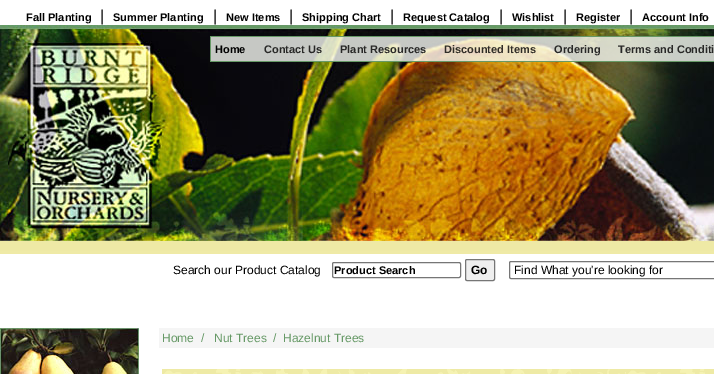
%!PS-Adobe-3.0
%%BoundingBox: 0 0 714 374
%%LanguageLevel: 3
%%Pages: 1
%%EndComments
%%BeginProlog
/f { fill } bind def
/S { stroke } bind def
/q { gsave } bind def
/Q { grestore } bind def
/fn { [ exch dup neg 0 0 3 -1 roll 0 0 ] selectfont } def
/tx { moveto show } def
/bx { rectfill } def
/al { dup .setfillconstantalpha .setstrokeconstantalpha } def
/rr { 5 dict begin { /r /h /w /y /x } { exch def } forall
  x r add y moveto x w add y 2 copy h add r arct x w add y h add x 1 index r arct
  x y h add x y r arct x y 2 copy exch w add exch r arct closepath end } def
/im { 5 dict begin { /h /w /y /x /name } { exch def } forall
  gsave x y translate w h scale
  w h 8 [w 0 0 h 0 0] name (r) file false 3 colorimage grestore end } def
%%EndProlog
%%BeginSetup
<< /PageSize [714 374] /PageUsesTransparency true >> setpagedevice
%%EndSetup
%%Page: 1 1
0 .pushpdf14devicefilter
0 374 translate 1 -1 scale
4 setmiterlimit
1 setgray
0 0 714 374 bx
/LiberationSans-Bold 11 fn
0 setgray
(Fall Planting) 26 21 tx
/LiberationSans-Regular 16 fn
(|) 100 21 tx
/LiberationSans-Bold 11 fn
(Summer Planting) 113 21 tx
/LiberationSans-Regular 16 fn
(|) 213 21 tx
/LiberationSans-Bold 11 fn
(New Items) 226 21 tx
/LiberationSans-Regular 16 fn
(|) 289 21 tx
/LiberationSans-Bold 11 fn
(Shipping Chart) 302 21 tx
/LiberationSans-Regular 16 fn
(|) 390 21 tx
/LiberationSans-Bold 11 fn
(Request Catalog) 403 21 tx
/LiberationSans-Regular 16 fn
(|) 499 21 tx
/LiberationSans-Bold 11 fn
(Wishlist) 512 21 tx
/LiberationSans-Regular 16 fn
(|) 563 21 tx
/LiberationSans-Bold 11 fn
(Register) 576 21 tx
/LiberationSans-Regular 16 fn
(|) 629 21 tx
/LiberationSans-Bold 11 fn
(Account Info) 642 21 tx
(image0.raw) 0 25 714 229 im
0.4 0.6 0.4 setrgbcolor
210 36 504 1 bx
210 37 1 24 bx
0.8 al
0.961 0.973 0.949 setrgbcolor
211 37 39 24 bx
1 al
0 setgray
(Home) 215 53 tx
0.776 0.784 0.769 setrgbcolor
250 37 10 24 bx
0.8 al
0.961 0.973 0.949 setrgbcolor
260 37 66 24 bx
1 al
0.157 0.157 0.153 setrgbcolor
(Contact Us) 264 53 tx
0.8 al
0.961 0.973 0.949 setrgbcolor
326 37 10 24 bx
336 37 94 24 bx
1 al
0.157 0.157 0.153 setrgbcolor
(Plant Resources) 340 53 tx
0.8 al
0.961 0.973 0.949 setrgbcolor
430 37 10 24 bx
440 37 100 24 bx
1 al
0.188 0.176 0.153 setrgbcolor
(Discounted Items) 444 53 tx
0.8 al
0.961 0.973 0.949 setrgbcolor
540 37 10 24 bx
550 37 54 24 bx
1 al
0.157 0.157 0.153 setrgbcolor
(Ordering) 554 53 tx
0.8 al
0.961 0.973 0.949 setrgbcolor
604 37 10 24 bx
614 37 100 24 bx
1 al
0.157 0.157 0.153 setrgbcolor
(Terms and Conditi) 618 53 tx
0.4 0.6 0.4 setrgbcolor
210 61 504 1 bx
/LiberationSans-Regular 12 fn
0 setgray
(Search our Product Catalog) 173 274 tx
0.463 setgray
332.5 262.5 128 15 1.5 rr S
/LiberationSans-Bold 11 fn
0 setgray
(Product Search) 334 274 tx
0.937 setgray
465.5 259.5 29 21 1.5 rr q f Q
0.463 setgray
S
/LiberationSans-Bold 12 fn
0 setgray
(Go) 471 274 tx
0.463 setgray
509.5 261.5 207 17 1.5 rr S
/LiberationSans-Regular 12 fn
0 setgray
(Find What you're looking for) 514 274 tx
(image1.raw) 0 328 139 46 im
0.961 setgray
159 328 555 20 bx
0.4 0.6 0.4 setrgbcolor
(Home) 162 342 tx
(/) 201 342 tx
(Nut Trees) 214 342 tx
(/) 273 342 tx
(Hazelnut Trees) 283 342 tx
(image2.raw) 162 369 552 5 im
.poppdf14devicefilter showpage
%%EOF
